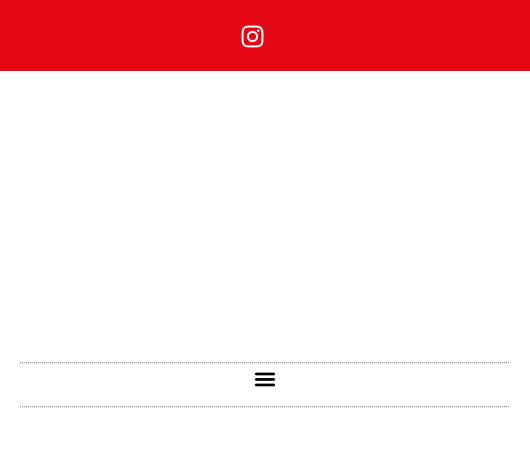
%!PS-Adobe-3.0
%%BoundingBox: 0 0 530 465
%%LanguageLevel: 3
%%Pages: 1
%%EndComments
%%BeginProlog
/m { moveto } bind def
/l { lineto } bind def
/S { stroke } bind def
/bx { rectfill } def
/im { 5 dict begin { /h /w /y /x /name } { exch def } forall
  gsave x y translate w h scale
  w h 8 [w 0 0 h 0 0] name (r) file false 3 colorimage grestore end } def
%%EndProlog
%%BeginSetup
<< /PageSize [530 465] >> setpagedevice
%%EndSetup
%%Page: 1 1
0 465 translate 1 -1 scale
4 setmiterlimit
1 setgray
0 0 530 465 bx
0.89 0.024 0.075 setrgbcolor
0 0 530 71 bx
(image0.raw) 241 25 23 23 im
0.557 setgray
[1 1] 0 setdash
20 362.5 m 510 362.5 l S
20 406.5 m 510 406.5 l S
(image1.raw) 254 372 22 15 im
showpage
%%EOF
